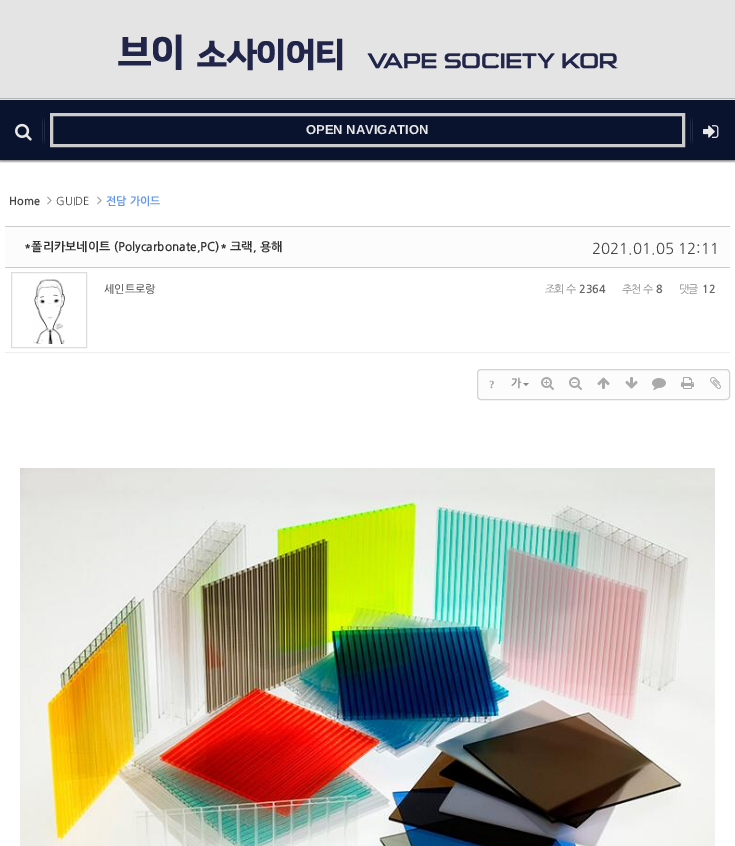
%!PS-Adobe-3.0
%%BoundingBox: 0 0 735 846
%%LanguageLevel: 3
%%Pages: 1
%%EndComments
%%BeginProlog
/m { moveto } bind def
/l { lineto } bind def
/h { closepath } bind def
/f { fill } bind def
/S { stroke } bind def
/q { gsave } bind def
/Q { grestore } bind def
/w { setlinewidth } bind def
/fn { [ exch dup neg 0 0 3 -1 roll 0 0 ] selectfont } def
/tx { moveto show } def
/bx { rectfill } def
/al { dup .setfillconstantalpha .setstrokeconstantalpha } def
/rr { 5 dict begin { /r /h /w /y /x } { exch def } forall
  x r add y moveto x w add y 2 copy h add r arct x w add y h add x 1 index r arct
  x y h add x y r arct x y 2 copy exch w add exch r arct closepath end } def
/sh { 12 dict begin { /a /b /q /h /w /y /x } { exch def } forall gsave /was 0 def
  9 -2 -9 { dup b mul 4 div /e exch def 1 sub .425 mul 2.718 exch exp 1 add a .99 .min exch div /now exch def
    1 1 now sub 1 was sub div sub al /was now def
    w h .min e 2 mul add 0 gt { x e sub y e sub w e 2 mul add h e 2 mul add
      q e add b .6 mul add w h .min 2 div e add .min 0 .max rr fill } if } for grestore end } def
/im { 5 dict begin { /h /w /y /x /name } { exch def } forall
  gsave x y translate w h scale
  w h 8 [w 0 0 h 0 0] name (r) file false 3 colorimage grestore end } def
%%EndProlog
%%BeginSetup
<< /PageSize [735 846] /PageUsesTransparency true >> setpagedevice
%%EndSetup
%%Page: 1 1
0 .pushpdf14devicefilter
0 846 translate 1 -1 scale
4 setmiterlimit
1 setgray
0 0 735 846 bx
(image0.raw) 0 160 735 2 im
0.039 0.075 0.18 setrgbcolor
0 100 735 60 bx
0.894 setgray
0 0 735 100 bx
0.714 setgray
0 98 735 1 bx
(image1.raw) 118 34 500 37 im
q
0 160 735 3 rectclip
0 setgray
0 102 735 60 0 1 0.3 sh
Q
(image2.raw) 42 117 3 28 im
(image3.raw) 15 123 17 18 im
0.8 setgray
3 w
51.5 114.5 632 31 rectstroke
/LiberationSans-Bold 13 fn
0.906 setgray
(OPEN NAVIGATION) 306 134 tx
(image2.raw) 690 117 3 28 im
(image4.raw) 703 125 16 13 im
/NanumGothic-Bold 11 fn
0.267 setgray
(Home) 9 205 tx
(image5.raw) 47 196 5 9 im
/NanumGothic-Regular 11 fn
(GUIDE) 56 205 tx
(image5.raw) 97 196 5 9 im
/NanumGothic-Bold 11 fn
0.392 0.584 0.929 setrgbcolor
(전담 가이드) 106 205 tx
0.988 setgray
5 227 725 40 bx
0.8 setgray
5 226 725 1 bx
5 267 725 1 bx
/NanumGothic-Bold 12 fn
0.2 setgray
(*폴리카보네이트 \(Polycarbonate,PC\)* 크랙, 용해) 24 251 tx
/NanumGothic-Regular 15 fn
0.267 setgray
(2021.01.05 12:11) 592 254 tx
0.933 setgray
5 352 725 1 bx
0.867 setgray
1 w
11.5 272.5 75 75 rectstroke
(image6.raw) 33 279 32 65 im
/NanumGothic-Regular 11 fn
0.2 setgray
(세인트로랑) 104 293 tx
0.533 setgray
545 293 m -1 0 (조회 수) ashow
/NanumGothic-Bold 11 fn
0.4 setgray
(2364) 579 293 tx
/NanumGothic-Regular 11 fn
0.533 setgray
622 293 m -1 0 (추천 수) ashow
/NanumGothic-Bold 11 fn
0.4 setgray
(8) 656 293 tx
/NanumGothic-Regular 11 fn
0.533 setgray
679 293 m -1 0 (댓글) ashow
/NanumGothic-Bold 11 fn
0.4 setgray
(12) 702 293 tx
0.988 setgray
477.5 369.5 252 30 3.5 rr q f Q
0.827 setgray
S
/LiberationSerif-Bold 11 fn
0.6 setgray
489 388 m -1 0 (?) ashow
/NanumGothic-Bold 11 fn
0.533 setgray
511 387 m -1 0 (가) ashow
523 383 m 529 383 l 526 386 l h f
(image7.raw) 541 377 13 13 im
(image8.raw) 569 377 13 13 im
(image9.raw) 597 377 13 12 im
(image10.raw) 625 377 13 12 im
(image11.raw) 652 378 14 12 im
(image12.raw) 681 377 13 12 im
(image13.raw) 710 377 11 12 im
(image14.raw) 20 468 695 378 im
.poppdf14devicefilter showpage
%%EOF
